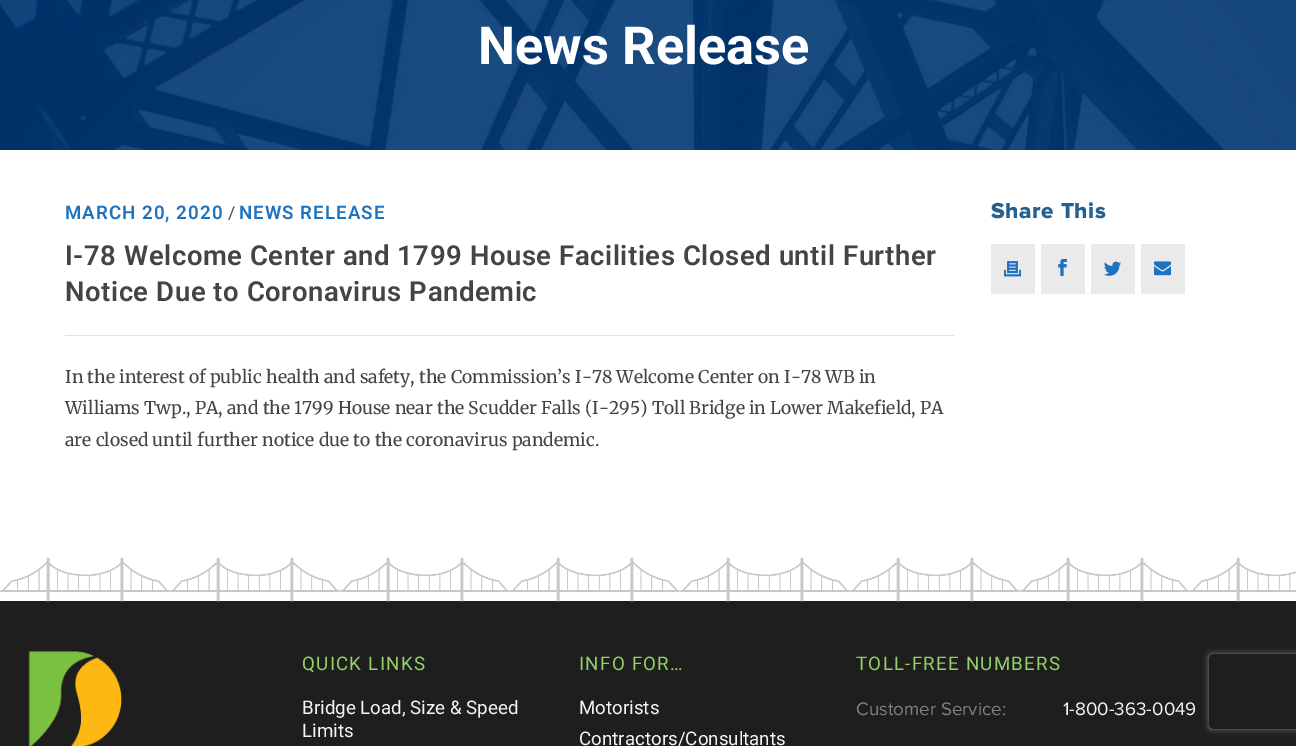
%!PS-Adobe-3.0
%%BoundingBox: 0 0 1296 746
%%LanguageLevel: 3
%%Pages: 1
%%EndComments
%%BeginProlog
/m { moveto } bind def
/l { lineto } bind def
/c { curveto } bind def
/h { closepath } bind def
/q { gsave } bind def
/Q { grestore } bind def
/fn { [ exch dup neg 0 0 3 -1 roll 0 0 ] selectfont } def
/tx { moveto show } def
/bx { rectfill } def
/al { dup .setfillconstantalpha .setstrokeconstantalpha } def
/rr { 5 dict begin { /r /h /w /y /x } { exch def } forall
  x r add y moveto x w add y 2 copy h add r arct x w add y h add x 1 index r arct
  x y h add x y r arct x y 2 copy exch w add exch r arct closepath end } def
/sh { 12 dict begin { /a /b /q /h /w /y /x } { exch def } forall gsave /was 0 def
  9 -2 -9 { dup b mul 4 div /e exch def 1 sub .425 mul 2.718 exch exp 1 add a .99 .min exch div /now exch def
    1 1 now sub 1 was sub div sub al /was now def
    w h .min e 2 mul add 0 gt { x e sub y e sub w e 2 mul add h e 2 mul add
      q e add b .6 mul add w h .min 2 div e add .min 0 .max rr fill } if } for grestore end } def
/im { 5 dict begin { /h /w /y /x /name } { exch def } forall
  gsave x y translate w h scale
  w h 8 [w 0 0 h 0 0] name (r) file false 3 colorimage grestore end } def
%%EndProlog
%%BeginSetup
<< /PageSize [1296 746] /PageUsesTransparency true >> setpagedevice
%%EndSetup
%%Page: 1 1
0 .pushpdf14devicefilter
0 746 translate 1 -1 scale
4 setmiterlimit
1 setgray
0 0 1296 746 bx
(image0.raw) 0 0 1296 150 im
/Roboto-Bold 52.5 fn
(News Release) 478 64 tx
0.886 setgray
65 335 889 1 bx
/Roboto-SemiBold 18.75 fn
0.118 0.451 0.745 setrgbcolor
65 219 m 1 0 (MARCH 20, 2020) ashow
/Roboto-Regular 17.5 fn
0.267 setgray
(/) 228 219 tx
/Roboto-SemiBold 18.75 fn
0.118 0.451 0.745 setrgbcolor
239 219 m 1 0 (NEWS RELEASE) ashow
/Roboto-SemiBold 27.5 fn
0.267 setgray
65 265 m 0.55 0 (I-78 Welcome Center and 1799 House Facilities Closed until Further) ashow
65 301 m 0.55 0 (Notice Due to Coronavirus Pandemic) ashow
/Merriweather-Regular 17.5 fn
(In the interest of public health and safety, the Commission’s I-78 Welcome Center on I-78 WB in) 65 383 tx
(Williams Twp., PA, and the 1799 House near the Scudder Falls \(I-295\) Toll Bridge in Lower Makefield, PA) 65 414 tx
(are closed until further notice due to the coronavirus pandemic.) 65 446 tx
/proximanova-ExtraBold 22.5 fn
0.137 0.38 0.573 setrgbcolor
991 218 m 0.6 0 (Share This) ashow
0.918 setgray
991 244 44 50 bx
(image1.raw) 1004 261 17 16 im
1041 244 44 50 bx
(image2.raw) 1058 259 9 17 im
1091 244 44 50 bx
(image3.raw) 1104 261 17 15 im
1141 244 44 50 bx
(image4.raw) 1154 261 17 15 im
0.118 setgray
0 601 1296 145 bx
(image5.raw) 0 557 1296 45 im
(image6.raw) 28 651 94 95 im
/Roboto-Regular 18.75 fn
0.584 0.816 0.4 setrgbcolor
302 670 m 1.25 0 (QUICK LINKS) ashow
0.957 setgray
(Bridge Load, Size & Speed) 302 714 tx
(Limits) 302 737 tx
0.584 0.816 0.4 setrgbcolor
579 670 m 1.25 0 (INFO FOR…) ashow
0.957 setgray
(Motorists) 579 714 tx
(Contractors/Consultants) 579 745 tx
0.584 0.816 0.4 setrgbcolor
856 670 m 1.25 0 (TOLL-FREE NUMBERS) ashow
/proximanova-Regular 18.75 fn
0.502 setgray
(Customer Service:) 856 715 tx
0.957 setgray
(1-800-363-0049) 1063 715 tx
q
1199 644 m 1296 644 l 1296 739 l 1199 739 l h 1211.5 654 m 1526.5 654 l 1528 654 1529 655 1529 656.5 c 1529 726.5 l 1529 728 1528 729 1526.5 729 c 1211.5 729 l 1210 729 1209 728 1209 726.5 c 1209 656.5 l 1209 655 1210 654 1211.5 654 c h eoclip newpath
0.502 setgray
1209 654 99 75 2.5 3 1 sh
Q
.poppdf14devicefilter showpage
%%EOF
